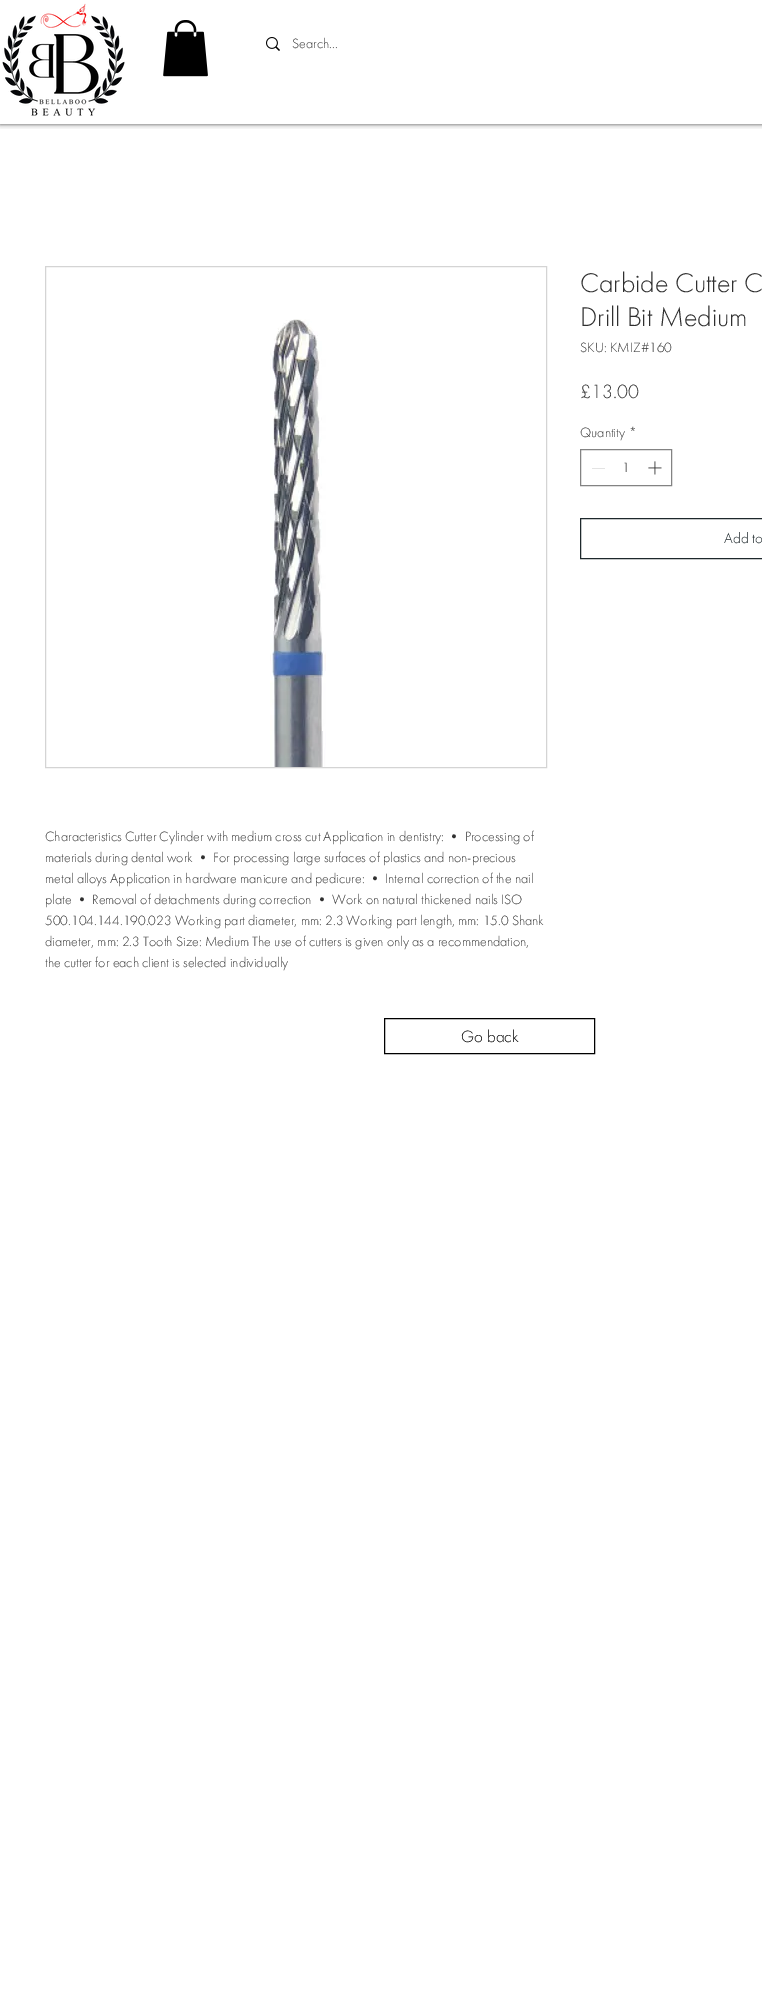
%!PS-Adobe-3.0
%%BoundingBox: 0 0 762 2006
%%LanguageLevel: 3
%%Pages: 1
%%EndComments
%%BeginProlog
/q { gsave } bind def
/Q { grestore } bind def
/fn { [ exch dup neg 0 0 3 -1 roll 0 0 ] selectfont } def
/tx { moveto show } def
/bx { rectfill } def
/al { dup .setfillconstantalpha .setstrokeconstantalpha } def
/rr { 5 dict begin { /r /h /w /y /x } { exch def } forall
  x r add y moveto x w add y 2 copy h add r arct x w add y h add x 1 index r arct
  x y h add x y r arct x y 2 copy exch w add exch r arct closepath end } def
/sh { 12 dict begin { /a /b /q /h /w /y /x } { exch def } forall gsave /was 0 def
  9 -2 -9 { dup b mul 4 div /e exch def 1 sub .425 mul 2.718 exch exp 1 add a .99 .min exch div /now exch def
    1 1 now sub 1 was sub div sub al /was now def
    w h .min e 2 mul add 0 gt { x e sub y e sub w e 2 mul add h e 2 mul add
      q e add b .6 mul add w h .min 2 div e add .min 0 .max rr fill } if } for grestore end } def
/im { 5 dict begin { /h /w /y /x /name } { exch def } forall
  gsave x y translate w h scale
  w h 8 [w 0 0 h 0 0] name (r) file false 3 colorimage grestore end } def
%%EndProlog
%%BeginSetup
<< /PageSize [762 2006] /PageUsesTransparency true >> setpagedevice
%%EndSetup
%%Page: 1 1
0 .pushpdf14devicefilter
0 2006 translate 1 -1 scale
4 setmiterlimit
1 setgray
0 0 762 2006 bx
q
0 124 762 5 rectclip
0 setgray
0 0 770 124 0 2.5 0.7 sh
Q
(image0.raw) 2 3 123 113 im
(image1.raw) 163 20 45 57 im
(image2.raw) 266 37 14 14 im
/FuturaPT-Light 14 fn
0.188 setgray
(Search...) 292 48 tx
/FuturaPT-Light 28 fn
(Carbide Cutter C) 580 292 tx
(Drill Bit Medium) 580 326 tx
/FuturaPT-Light 14 fn
(SKU: KMIZ#160) 580 352 tx
/FuturaPT-Light 20 fn
(£13.00) 580 398 tx
/FuturaPT-Light 14 fn
(Quantity) 580 437 tx
(*) 629 437 tx
0.514 setgray
580.5 449.5 91 36 rectstroke
0.89 setgray
592 468 13 1 bx
0.188 setgray
(1) 622 472 tx
(image3.raw) 648 461 14 14 im
0.118 0.157 0.173 setrgbcolor
580.5 518.5 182 40 rectstroke
/FuturaPT-Light 15 fn
(Add to) 724 543 tx
0.831 setgray
45.5 266.5 501 501 rectstroke
(image4.raw) 270 319 56 448 im
/FuturaPT-Light 14 fn
0.188 setgray
(Characteristics Cutter Cylinder with medium cross cut Application in dentistry: • Processing of) 45 841 tx
(materials during dental work • For processing large surfaces of plastics and non-precious) 45 862 tx
(metal alloys Application in hardware manicure and pedicure: • Internal correction of the nail) 45 883 tx
(plate • Removal of detachments during correction • Work on natural thickened nails ISO) 45 904 tx
(500.104.144.190.023 Working part diameter, mm: 2.3 Working part length, mm: 15.0 Shank) 45 925 tx
(diameter, mm: 2.3 Tooth Size: Medium The use of cutters is given only as a recommendation,) 45 946 tx
(the cutter for each client is selected individually) 45 967 tx
0 setgray
384.5 1018.5 210 35 rectstroke
/FuturaPT-Light 17 fn
(Go back) 461 1042 tx
.poppdf14devicefilter showpage
%%EOF
